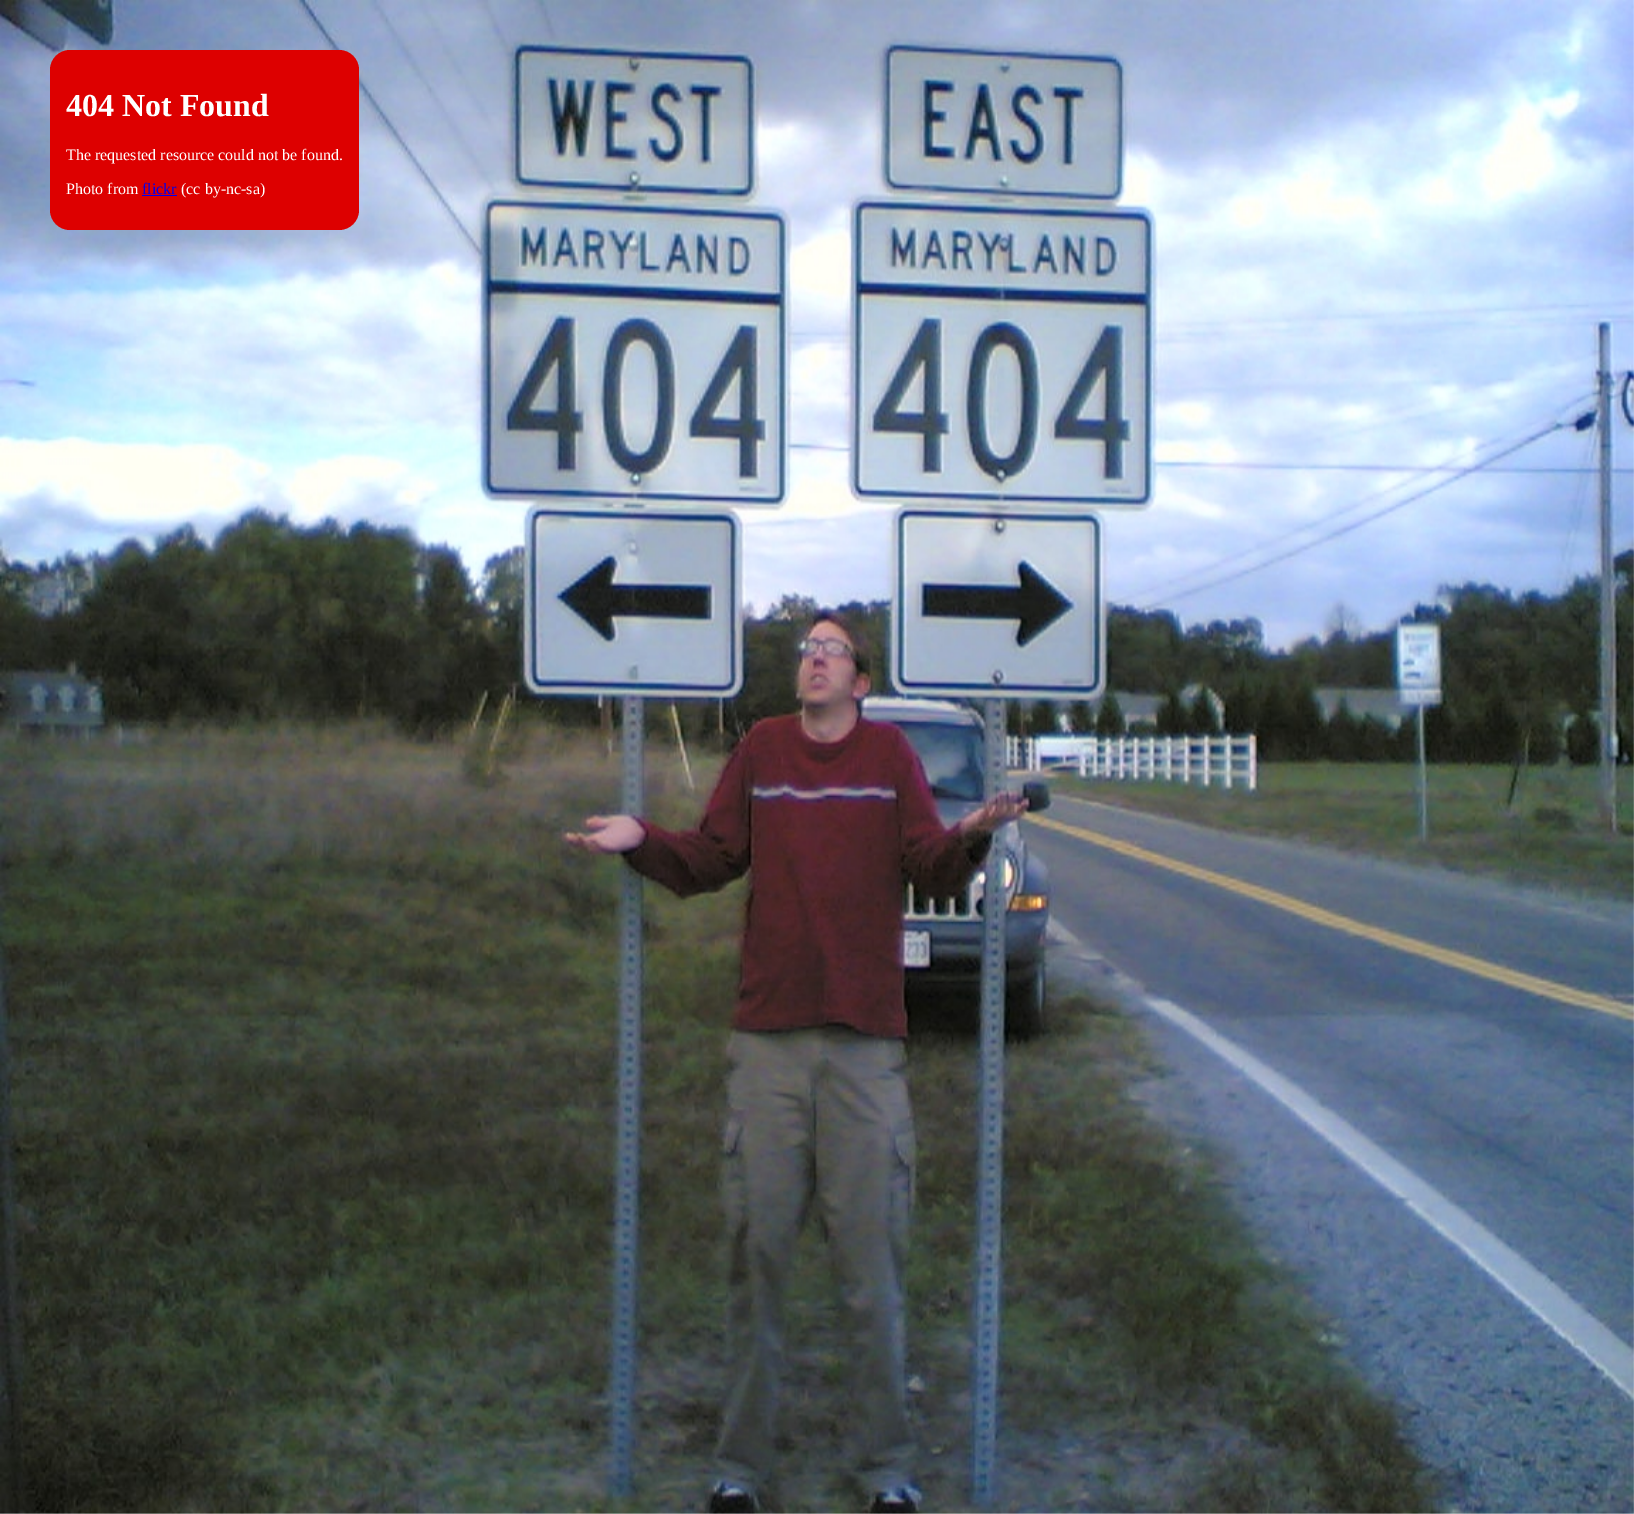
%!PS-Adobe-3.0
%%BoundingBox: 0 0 1634 1514
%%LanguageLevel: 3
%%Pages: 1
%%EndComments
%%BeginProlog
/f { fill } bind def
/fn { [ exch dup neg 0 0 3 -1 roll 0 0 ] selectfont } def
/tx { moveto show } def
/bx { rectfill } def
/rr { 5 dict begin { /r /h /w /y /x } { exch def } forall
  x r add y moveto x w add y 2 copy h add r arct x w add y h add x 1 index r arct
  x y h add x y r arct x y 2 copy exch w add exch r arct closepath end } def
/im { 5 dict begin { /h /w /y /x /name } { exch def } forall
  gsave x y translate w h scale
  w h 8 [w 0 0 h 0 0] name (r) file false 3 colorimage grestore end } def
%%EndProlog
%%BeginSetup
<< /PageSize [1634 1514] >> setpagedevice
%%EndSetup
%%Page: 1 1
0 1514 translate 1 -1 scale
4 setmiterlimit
1 setgray
0 0 1634 1514 bx
(image0.raw) 0 0 1634 1514 im
0.867 0 0 setrgbcolor
50 50 309 180 20 rr f
/LiberationSerif-Bold 32 fn
1 setgray
(404 Not Found) 66 116 tx
/LiberationSerif-Regular 16 fn
(The requested resource could not be found.) 66 160 tx
(Photo from) 66 194 tx
0 0 0.933 setrgbcolor
(flickr) 142 194 tx
142 195 35 1 bx
1 setgray
(\(cc by-nc-sa\)) 181 194 tx
showpage
%%EOF
